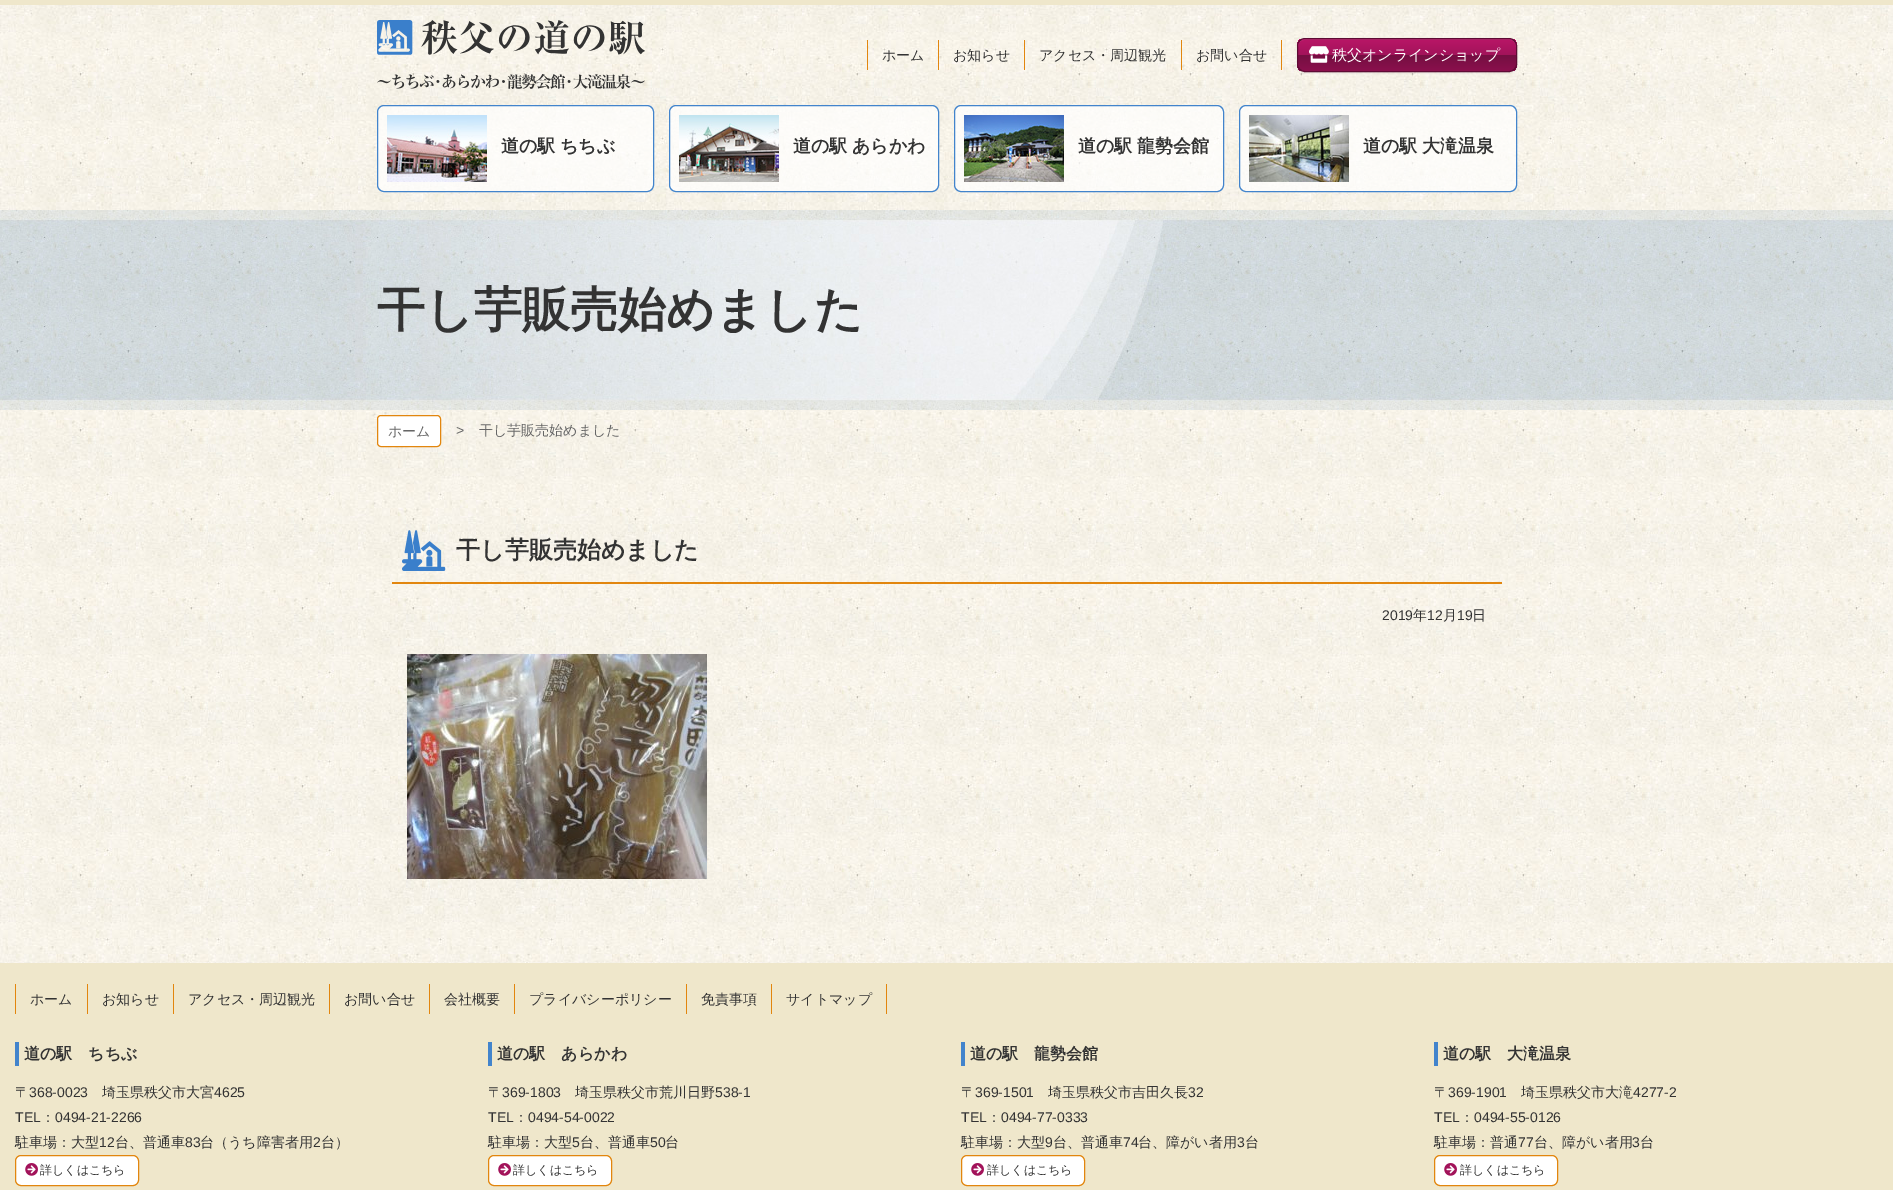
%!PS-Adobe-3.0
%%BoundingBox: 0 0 1893 1190
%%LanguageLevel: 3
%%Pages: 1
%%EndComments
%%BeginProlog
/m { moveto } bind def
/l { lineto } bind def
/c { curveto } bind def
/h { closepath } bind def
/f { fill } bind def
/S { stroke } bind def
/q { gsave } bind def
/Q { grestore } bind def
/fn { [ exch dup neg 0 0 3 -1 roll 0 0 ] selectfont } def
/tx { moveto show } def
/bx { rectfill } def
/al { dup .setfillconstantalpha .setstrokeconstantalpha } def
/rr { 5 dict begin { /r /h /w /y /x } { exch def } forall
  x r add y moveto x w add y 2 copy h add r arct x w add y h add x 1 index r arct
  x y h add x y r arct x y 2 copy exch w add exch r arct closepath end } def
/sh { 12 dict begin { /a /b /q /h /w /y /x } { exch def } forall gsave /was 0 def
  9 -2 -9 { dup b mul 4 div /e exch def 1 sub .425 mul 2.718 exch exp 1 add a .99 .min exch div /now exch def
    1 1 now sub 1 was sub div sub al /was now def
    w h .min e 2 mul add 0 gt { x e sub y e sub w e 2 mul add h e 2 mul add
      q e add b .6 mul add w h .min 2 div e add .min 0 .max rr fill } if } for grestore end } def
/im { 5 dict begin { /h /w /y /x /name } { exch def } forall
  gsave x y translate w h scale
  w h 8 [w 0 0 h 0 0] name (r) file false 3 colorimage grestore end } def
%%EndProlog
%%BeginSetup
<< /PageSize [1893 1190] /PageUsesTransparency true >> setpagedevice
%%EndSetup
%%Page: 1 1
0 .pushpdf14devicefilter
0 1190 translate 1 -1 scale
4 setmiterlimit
1 setgray
0 0 1893 1190 bx
(image0.raw) 0 5 1893 958 im
0.937 0.906 0.796 setrgbcolor
0 0 1893 5 bx
(image1.raw) 377 20 268 69 im
0.886 0.525 0.055 setrgbcolor
867 40 1 30 bx
/WenQuanYiZenHei-Medium 14 fn
0.2 setgray
(ホーム) 882 60 tx
0.886 0.525 0.055 setrgbcolor
938 40 1 30 bx
0.2 setgray
(お知らせ) 953 60 tx
0.886 0.525 0.055 setrgbcolor
1024 40 1 30 bx
0.2 setgray
(アクセス・周辺観光) 1039 60 tx
0.886 0.525 0.055 setrgbcolor
1281 40 1 30 bx
1181 40 1 30 bx
0.2 setgray
(お問い合せ) 1196 60 tx
1297 39 220 34 8 1 0.15 sh
q
1297 38 220 34 8 rr clip newpath
q 1297 39 m 1517 39 l 1517 71 l 1297 71 l h clip newpath
<< /ShadingType 2 /ColorSpace /DeviceRGB /Coords [1407 39 1407 71] /Extend [true true] /Function << /FunctionType 3 /Domain [0 1] /Functions [<< /FunctionType 2 /Domain [0 1] /C0 [0.725 0.086 0.404] /C1 [0.635 0.075 0.353] /N 1 >> << /FunctionType 2 /Domain [0 1] /C0 [0.455 0.055 0.255] /C1 [0.545 0.063 0.302] /N 1 >>] /Bounds [0.5] /Encode [0 1 0 1] >> >> shfill Q
Q
0.749 0.176 0.463 setrgbcolor
1304 40 m 1510 40 l 1513 40 1516 43 1516 47 c 1516 46 l 1516 42 1513 39 1509 39 c 1305 39 l 1301 39 1298 42 1298 46 c 1298 47 l 1298 43 1301 40 1304 40 c h f
0.369 0.043 0.204 setrgbcolor
1297.5 38.5 219 33 7.5 rr S
(image2.raw) 1309 46 20 17 im
/WenQuanYiZenHei-Medium 15 fn
1 setgray
(秩父オンラインショップ) 1332 60 tx
0.7 al
377.5 105.5 276 86 6.5 rr f
1 al
0.259 0.518 0.8 setrgbcolor
377.5 105.5 276 86 6.5 rr S
(image3.raw) 387 115 100 67 im
/WenQuanYiZenHei-Bold 18 fn
0.2 setgray
501 152 m -1 0 32 (道の駅 ちちぶ) widthshow
0.7 al
1 setgray
669.5 105.5 269 86 6.5 rr f
1 al
0.259 0.518 0.8 setrgbcolor
669.5 105.5 269 86 6.5 rr S
(image4.raw) 679 115 100 67 im
0.2 setgray
793 152 m -1 0 32 (道の駅 あらかわ) widthshow
0.7 al
1 setgray
954.5 105.5 269 86 6.5 rr f
1 al
0.259 0.518 0.8 setrgbcolor
954.5 105.5 269 86 6.5 rr S
(image5.raw) 964 115 100 67 im
0.2 setgray
1078 152 m -1 0 32 (道の駅 龍勢会館) widthshow
0.7 al
1 setgray
1239.5 105.5 277 86 6.5 rr f
1 al
0.259 0.518 0.8 setrgbcolor
1239.5 105.5 277 86 6.5 rr S
(image6.raw) 1249 115 100 67 im
0.2 setgray
1363 152 m -1 0 32 (道の駅 大滝温泉) widthshow
(image7.raw) 0 210 1893 200 im
/WenQuanYiZenHei-Bold 48 fn
(干し芋販売始めました) 377 326 tx
1 setgray
377.5 415.5 63 31 3.5 rr q f Q
0.886 0.525 0.055 setrgbcolor
S
/WenQuanYiZenHei-Medium 14 fn
0.4 setgray
(ホーム) 388 436 tx
/LiberationSans-Regular 14 fn
(>) 456 435 tx
/WenQuanYiZenHei-Medium 14 fn
(干し芋販売始めました) 479 435 tx
0.886 0.525 0.055 setrgbcolor
392 582 1110 2 bx
(image8.raw) 402 530 44 41 im
/WenQuanYiZenHei-Bold 24 fn
0.2 setgray
(干し芋販売始めました) 456 558 tx
/LiberationSans-Regular 14 fn
(2019) 1382 620 tx
/WenQuanYiZenHei-Medium 14 fn
(年) 1413 620 tx
/LiberationSans-Regular 14 fn
(12) 1427 620 tx
/WenQuanYiZenHei-Medium 14 fn
(月) 1443 620 tx
/LiberationSans-Regular 14 fn
(19) 1457 620 tx
/WenQuanYiZenHei-Medium 14 fn
(日) 1472 620 tx
(image9.raw) 407 654 300 225 im
0.937 0.906 0.796 setrgbcolor
0 963 1893 227 bx
0.886 0.525 0.055 setrgbcolor
15 984 1 30 bx
0.2 setgray
(ホーム) 30 1004 tx
0.886 0.525 0.055 setrgbcolor
87 984 1 30 bx
0.2 setgray
(お知らせ) 102 1004 tx
0.886 0.525 0.055 setrgbcolor
173 984 1 30 bx
0.2 setgray
(アクセス・周辺観光) 188 1004 tx
0.886 0.525 0.055 setrgbcolor
329 984 1 30 bx
0.2 setgray
(お問い合せ) 344 1004 tx
0.886 0.525 0.055 setrgbcolor
429 984 1 30 bx
0.2 setgray
(会社概要) 444 1004 tx
0.886 0.525 0.055 setrgbcolor
514 984 1 30 bx
0.2 setgray
(プライバシーポリシー) 529 1004 tx
0.886 0.525 0.055 setrgbcolor
686 984 1 30 bx
0.2 setgray
(免責事項) 701 1004 tx
0.886 0.525 0.055 setrgbcolor
886 984 1 30 bx
771 984 1 30 bx
0.2 setgray
(サイトマップ) 786 1004 tx
0.259 0.518 0.8 setrgbcolor
15 1042 4 24 bx
/WenQuanYiZenHei-Bold 16 fn
0.2 setgray
(道の駅　ちちぶ) 24 1059 tx
/WenQuanYiZenHei-Medium 14 fn
(〒) 15 1097 tx
/LiberationSans-Regular 14 fn
(368-0023) 29 1097 tx
/WenQuanYiZenHei-Medium 14 fn
(埼玉県秩父市大宮) 102 1097 tx
/LiberationSans-Regular 14 fn
(4625) 214 1097 tx
(TEL) 15 1122 tx
/WenQuanYiZenHei-Medium 14 fn
(：) 41 1122 tx
/LiberationSans-Regular 14 fn
(0494-21-2266) 55 1122 tx
/WenQuanYiZenHei-Medium 14 fn
(駐車場：大型) 15 1147 tx
/LiberationSans-Regular 14 fn
(12) 99 1147 tx
/WenQuanYiZenHei-Medium 14 fn
(台、普通車) 115 1147 tx
/LiberationSans-Regular 14 fn
(83) 185 1147 tx
/WenQuanYiZenHei-Medium 14 fn
(台（うち障害者用) 200 1147 tx
/LiberationSans-Regular 14 fn
(2) 313 1147 tx
/WenQuanYiZenHei-Medium 14 fn
(台）) 321 1147 tx
1 setgray
15.5 1155.5 123 30 5.5 rr q f Q
0.886 0.525 0.055 setrgbcolor
S
(image10.raw) 25 1163 13 13 im
/WenQuanYiZenHei-Medium 12 fn
0.2 setgray
(詳しくはこちら) 40 1174 tx
0.259 0.518 0.8 setrgbcolor
488 1042 4 24 bx
/WenQuanYiZenHei-Bold 16 fn
0.2 setgray
(道の駅　あらかわ) 497 1059 tx
/WenQuanYiZenHei-Medium 14 fn
(〒) 488 1097 tx
/LiberationSans-Regular 14 fn
(369-1803) 502 1097 tx
/WenQuanYiZenHei-Medium 14 fn
(埼玉県秩父市荒川日野) 575 1097 tx
/LiberationSans-Regular 14 fn
(538-1) 715 1097 tx
(TEL) 488 1122 tx
/WenQuanYiZenHei-Medium 14 fn
(：) 514 1122 tx
/LiberationSans-Regular 14 fn
(0494-54-0022) 528 1122 tx
/WenQuanYiZenHei-Medium 14 fn
(駐車場：大型) 488 1147 tx
/LiberationSans-Regular 14 fn
(5) 572 1147 tx
/WenQuanYiZenHei-Medium 14 fn
(台、普通車) 580 1147 tx
/LiberationSans-Regular 14 fn
(50) 650 1147 tx
/WenQuanYiZenHei-Medium 14 fn
(台) 665 1147 tx
1 setgray
488.5 1155.5 123 30 5.5 rr q f Q
0.886 0.525 0.055 setrgbcolor
S
(image10.raw) 498 1163 13 13 im
/WenQuanYiZenHei-Medium 12 fn
0.2 setgray
(詳しくはこちら) 513 1174 tx
0.259 0.518 0.8 setrgbcolor
961 1042 4 24 bx
/WenQuanYiZenHei-Bold 16 fn
0.2 setgray
(道の駅　龍勢会館) 970 1059 tx
/WenQuanYiZenHei-Medium 14 fn
(〒) 961 1097 tx
/LiberationSans-Regular 14 fn
(369-1501) 975 1097 tx
/WenQuanYiZenHei-Medium 14 fn
(埼玉県秩父市吉田久長) 1048 1097 tx
/LiberationSans-Regular 14 fn
(32) 1188 1097 tx
(TEL) 961 1122 tx
/WenQuanYiZenHei-Medium 14 fn
(：) 987 1122 tx
/LiberationSans-Regular 14 fn
(0494-77-0333) 1001 1122 tx
/WenQuanYiZenHei-Medium 14 fn
(駐車場：大型) 961 1147 tx
/LiberationSans-Regular 14 fn
(9) 1045 1147 tx
/WenQuanYiZenHei-Medium 14 fn
(台、普通車) 1053 1147 tx
/LiberationSans-Regular 14 fn
(74) 1123 1147 tx
/WenQuanYiZenHei-Medium 14 fn
(台、障がい者用) 1138 1147 tx
/LiberationSans-Regular 14 fn
(3) 1237 1147 tx
/WenQuanYiZenHei-Medium 14 fn
(台) 1245 1147 tx
1 setgray
961.5 1155.5 123 30 5.5 rr q f Q
0.886 0.525 0.055 setrgbcolor
S
(image10.raw) 971 1163 13 13 im
/WenQuanYiZenHei-Medium 12 fn
0.2 setgray
(詳しくはこちら) 987 1174 tx
0.259 0.518 0.8 setrgbcolor
1434 1042 4 24 bx
/WenQuanYiZenHei-Bold 16 fn
0.2 setgray
(道の駅　大滝温泉) 1443 1059 tx
/WenQuanYiZenHei-Medium 14 fn
(〒) 1434 1097 tx
/LiberationSans-Regular 14 fn
(369-1901) 1448 1097 tx
/WenQuanYiZenHei-Medium 14 fn
(埼玉県秩父市大滝) 1521 1097 tx
/LiberationSans-Regular 14 fn
(4277-2) 1633 1097 tx
(TEL) 1434 1122 tx
/WenQuanYiZenHei-Medium 14 fn
(：) 1460 1122 tx
/LiberationSans-Regular 14 fn
(0494-55-0126) 1474 1122 tx
/WenQuanYiZenHei-Medium 14 fn
(駐車場：普通) 1434 1147 tx
/LiberationSans-Regular 14 fn
(77) 1518 1147 tx
/WenQuanYiZenHei-Medium 14 fn
(台、障がい者用) 1534 1147 tx
/LiberationSans-Regular 14 fn
(3) 1632 1147 tx
/WenQuanYiZenHei-Medium 14 fn
(台) 1640 1147 tx
1 setgray
1434.5 1155.5 123 30 5.5 rr q f Q
0.886 0.525 0.055 setrgbcolor
S
(image10.raw) 1444 1163 13 13 im
/WenQuanYiZenHei-Medium 12 fn
0.2 setgray
(詳しくはこちら) 1460 1174 tx
.poppdf14devicefilter showpage
%%EOF
